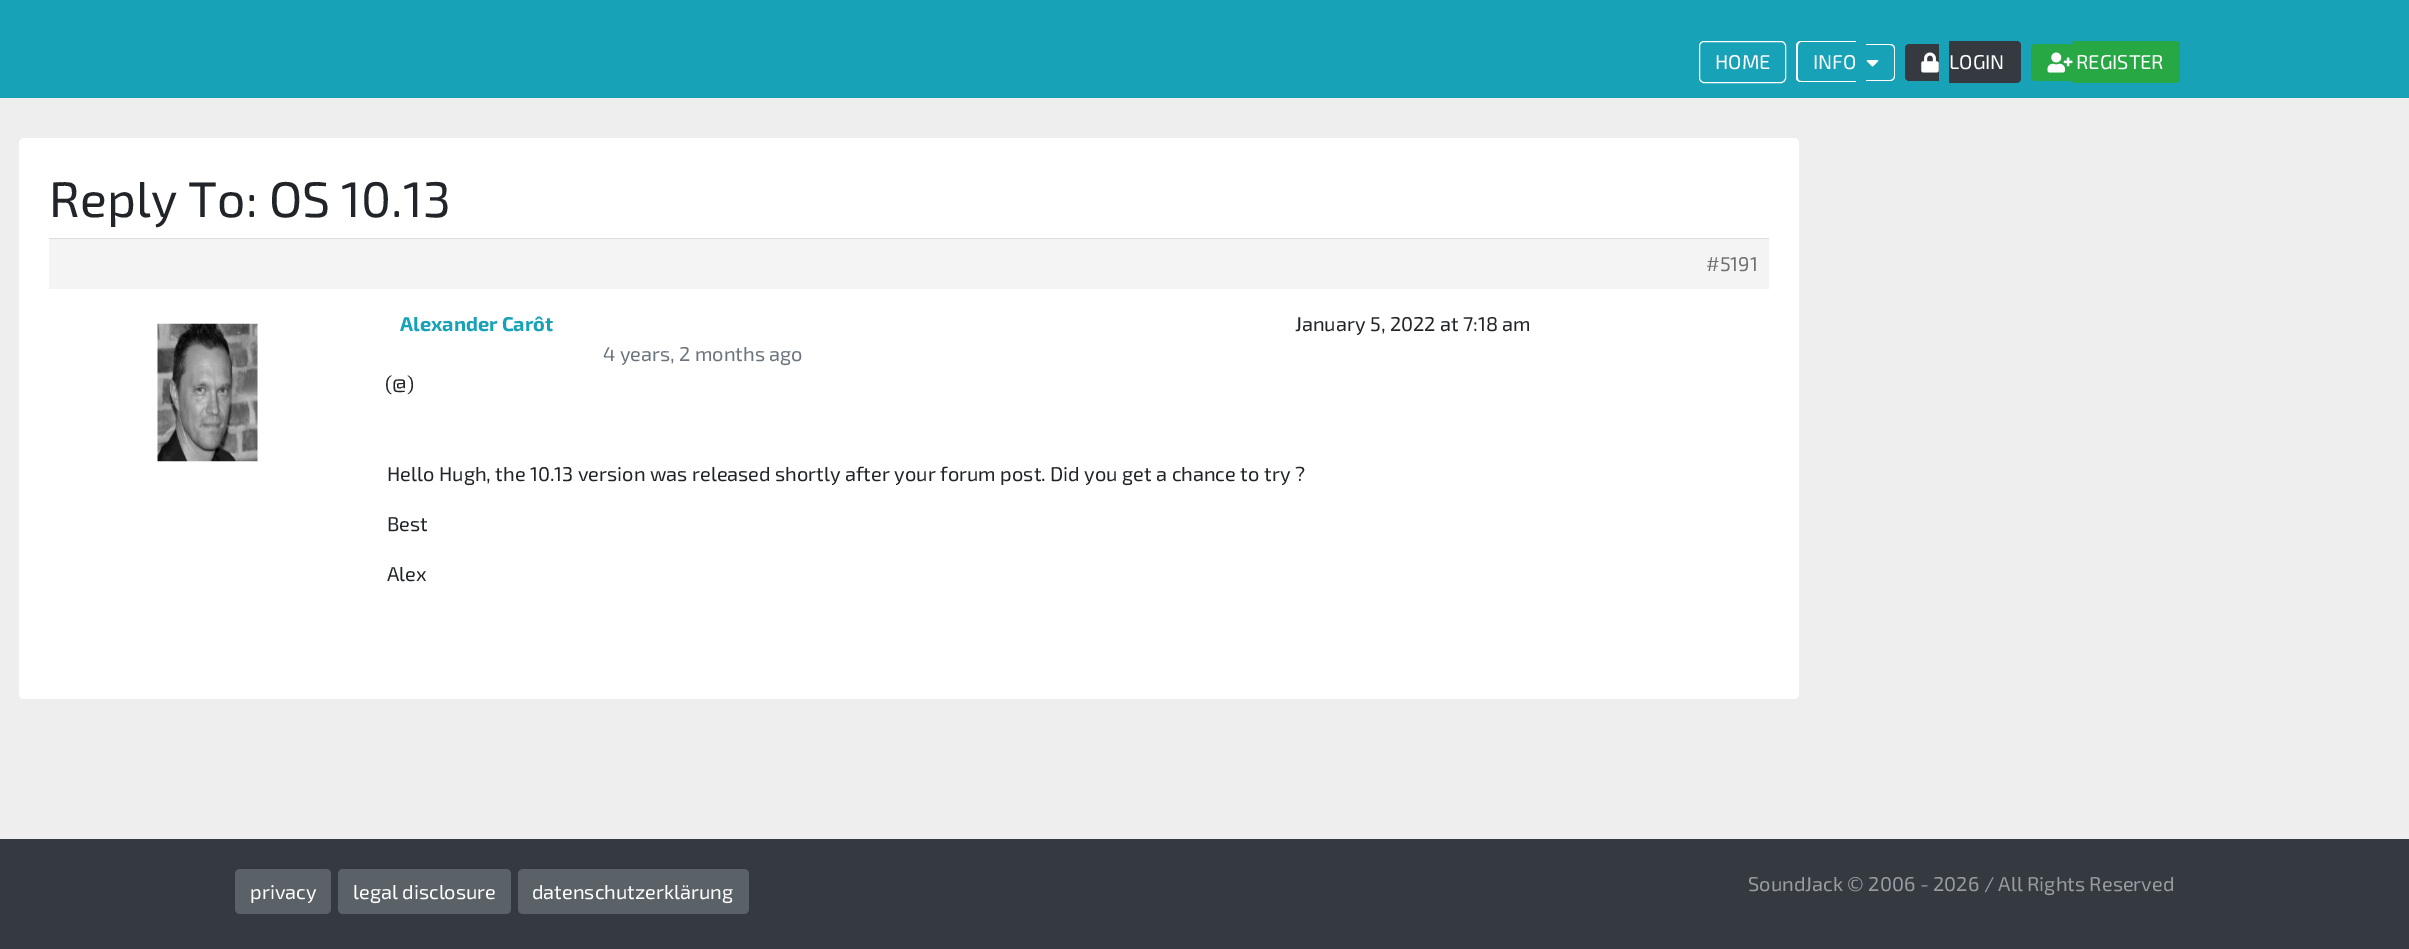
%!PS-Adobe-3.0
%%BoundingBox: 0 0 2409 949
%%LanguageLevel: 3
%%Pages: 1
%%EndComments
%%BeginProlog
/m { moveto } bind def
/l { lineto } bind def
/c { curveto } bind def
/h { closepath } bind def
/f { fill } bind def
/S { stroke } bind def
/fn { [ exch dup neg 0 0 3 -1 roll 0 0 ] selectfont } def
/tx { moveto show } def
/bx { rectfill } def
/rr { 5 dict begin { /r /h /w /y /x } { exch def } forall
  x r add y moveto x w add y 2 copy h add r arct x w add y h add x 1 index r arct
  x y h add x y r arct x y 2 copy exch w add exch r arct closepath end } def
/im { 5 dict begin { /h /w /y /x /name } { exch def } forall
  gsave x y translate w h scale
  w h 8 [w 0 0 h 0 0] name (r) file false 3 colorimage grestore end } def
%%EndProlog
%%BeginSetup
<< /PageSize [2409 949] >> setpagedevice
%%EndSetup
%%Page: 1 1
0 949 translate 1 -1 scale
4 setmiterlimit
0.933 setgray
0 0 2409 949 bx
0.09 0.635 0.722 setrgbcolor
0 0 2409 98 bx
1 setgray
1699.5 41.5 86 41 4.5 rr S
/Exo2-Regular 20 fn
(HOME) 1715 69 tx
1801 41 m 1856 41 l 1856 82 l 1801 82 l 1798 82 1796 80 1796 78 c 1796 46 l 1796 43 1798 41 1801 41 c h 1801 42 m 1856 42 l 1856 81 l 1801 81 l 1799 81 1798 80 1798 78 c 1798 46 l 1798 44 1799 42 1801 42 c h eofill
1866 44 m 1890 44 l 1893 44 1895 46 1895 49 c 1895 76 l 1895 79 1893 81 1890 81 c 1866 81 l h 1866 45 m 1890 45 l 1892 45 1894 46.5 1894 49 c 1894 76 l 1894 78.5 1892 80 1890 80 c 1866 80 l h eofill
(INFO) 1813 69 tx
(image0.raw) 1866 60 13 7 im
0.204 0.227 0.251 setrgbcolor
1910 44 m 1939 44 l 1939 81 l 1910 81 l 1907 81 1905 79 1905 76 c 1905 49 l 1905 46 1907 44 1910 44 c h f
1910 44 m 1939 44 l 1939 81 l 1910 81 l 1907 81 1905 79 1905 76 c 1905 49 l 1905 46 1907 44 1910 44 c h 1910 45 m 1939 45 l 1939 80 l 1910 80 l 1908 80 1906 78.5 1906 76 c 1906 49 l 1906 46.5 1908 45 1910 45 c h eofill
1949 41 m 2016 41 l 2019 41 2021 43 2021 46 c 2021 78 l 2021 81 2019 83 2016 83 c 1949 83 l h f
1949 41 m 2016 41 l 2019 41 2021 43 2021 46 c 2021 78 l 2021 80 2019 82 2016 82 c 1949 82 l h 1949 42 m 2005 42 l 2024 42 2020 42 2020 62 c 2020 82 2024 81 2005 81 c 1949 81 l h eofill
(image1.raw) 1921 52 18 21 im
1 setgray
(LOGIN) 1949 69 tx
0.157 0.655 0.271 setrgbcolor
2036 44 m 2073 44 l 2073 81 l 2036 81 l 2033 81 2031 79 2031 76 c 2031 49 l 2031 46 2033 44 2036 44 c h f
2036 44 m 2072 44 l 2072 81 l 2036 81 l 2033 81 2031 79 2031 76 c 2031 49 l 2031 46 2033 44 2036 44 c h 2036 45 m 2072 45 l 2072 80 l 2036 80 l 2034 80 2032 78 2032 76 c 2032 49 l 2032 47 2034 45 2036 45 c h eofill
2073 41 m 2175 41 l 2178 41 2180 43 2180 46 c 2180 78 l 2180 81 2178 83 2175 83 c 2073 83 l h f
2072 41 m 2175 41 l 2178 41 2180 43 2180 46 c 2180 78 l 2180 80 2178 82 2175 82 c 2072 82 l h 2072 42 m 2175 42 l 2177 42 2179 44 2179 46 c 2179 78 l 2179 80 2177 81 2175 81 c 2072 81 l h eofill
(image2.raw) 2047 52 26 21 im
1 setgray
(REGISTER) 2076 69 tx
19 138 1780 561 5 rr f
/Exo2-Regular 50 fn
0.129 0.145 0.161 setrgbcolor
(Reply To: OS 10.13) 49 217 tx
0.957 setgray
49 239 1720 50 bx
0.867 setgray
49 238 1720 1 bx
/Exo2-Regular 20 fn
0.439 setgray
(#5191) 1706 271 tx
(image3.raw) 157 323 101 139 im
/Exo2-Bold 20 fn
0.09 0.635 0.722 setrgbcolor
(Alexander Carôt) 400 331 tx
/Exo2-Regular 20 fn
0.129 0.145 0.161 setrgbcolor
(January 5, 2022 at 7:18 am) 1295 331 tx
0.424 0.459 0.49 setrgbcolor
(4 years, 2 months ago) 603 361 tx
0.129 0.145 0.161 setrgbcolor
(\(@\)) 385 391 tx
(Hello Hugh, the 10.13 version was released shortly after your forum post. Did you get a chance to try ?) 387 481 tx
(Best) 387 531 tx
(Alex) 387 581 tx
0.204 0.227 0.251 setrgbcolor
0 839 2409 110 bx
0.353 0.384 0.408 setrgbcolor
235 869 96 45 5 rr f
1 setgray
(privacy) 250 899 tx
0.353 0.384 0.408 setrgbcolor
338 869 173 45 5 rr f
1 setgray
(legal disclosure) 353 899 tx
0.353 0.384 0.408 setrgbcolor
518 869 231 45 5 rr f
1 setgray
(datenschutzerklärung) 532 899 tx
0.604 0.616 0.627 setrgbcolor
(SoundJack © 2006 - 2026 / All Rights Reserved) 1748 891 tx
showpage
%%EOF
